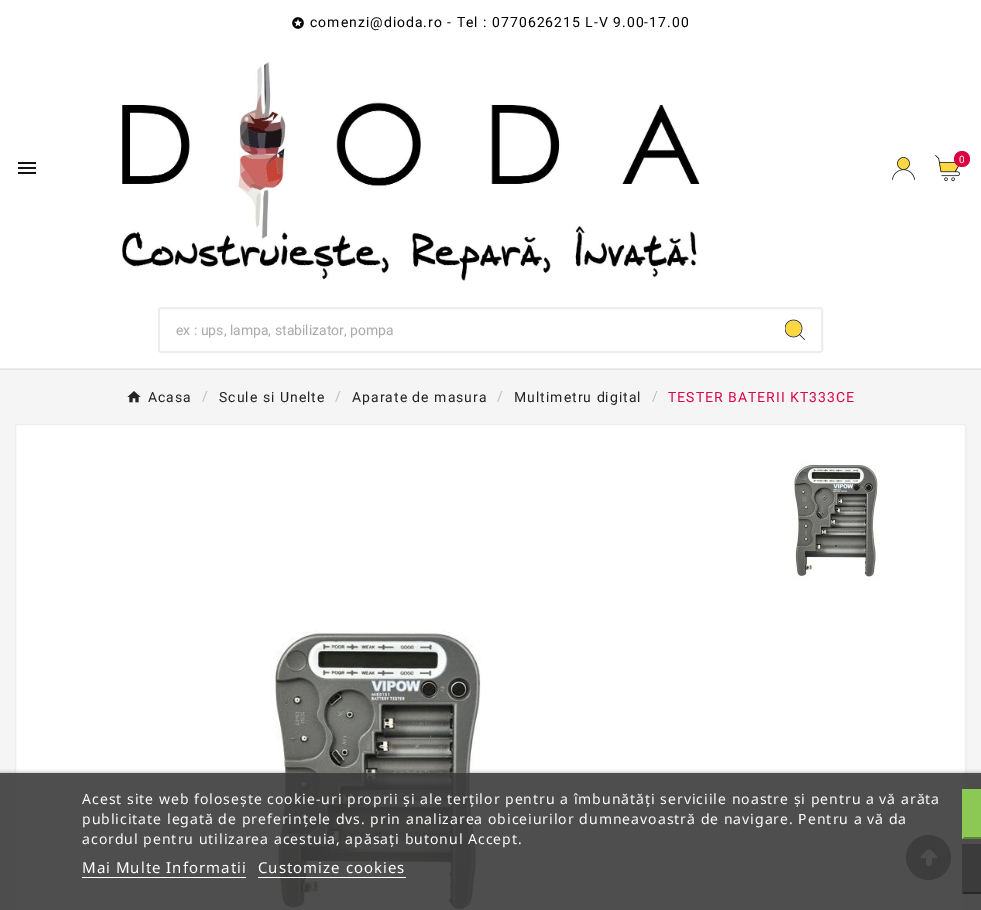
%!PS-Adobe-3.0
%%BoundingBox: 0 0 981 910
%%LanguageLevel: 3
%%Pages: 1
%%EndComments
%%BeginProlog
/m { moveto } bind def
/l { lineto } bind def
/h { closepath } bind def
/f { fill } bind def
/S { stroke } bind def
/q { gsave } bind def
/Q { grestore } bind def
/w { setlinewidth } bind def
/fn { [ exch dup neg 0 0 3 -1 roll 0 0 ] selectfont } def
/tx { moveto show } def
/bx { rectfill } def
/al { dup .setfillconstantalpha .setstrokeconstantalpha } def
/ci { newpath 0 360 arc closepath } def
/rr { 5 dict begin { /r /h /w /y /x } { exch def } forall
  x r add y moveto x w add y 2 copy h add r arct x w add y h add x 1 index r arct
  x y h add x y r arct x y 2 copy exch w add exch r arct closepath end } def
/sh { 12 dict begin { /a /b /q /h /w /y /x } { exch def } forall gsave /was 0 def
  9 -2 -9 { dup b mul 4 div /e exch def 1 sub .425 mul 2.718 exch exp 1 add a .99 .min exch div /now exch def
    1 1 now sub 1 was sub div sub al /was now def
    w h .min e 2 mul add 0 gt { x e sub y e sub w e 2 mul add h e 2 mul add
      q e add b .6 mul add w h .min 2 div e add .min 0 .max rr fill } if } for grestore end } def
/im { 5 dict begin { /h /w /y /x /name } { exch def } forall
  gsave x y translate w h scale
  w h 8 [w 0 0 h 0 0] name (r) file false 3 colorimage grestore end } def
%%EndProlog
%%BeginSetup
<< /PageSize [981 910] /PageUsesTransparency true >> setpagedevice
%%EndSetup
%%Page: 1 1
0 .pushpdf14devicefilter
0 910 translate 1 -1 scale
4 setmiterlimit
0.961 setgray
0 0 981 910 bx
1 setgray
0 0 981 368 bx
0.898 setgray
0 369 981 1 bx
0.929 setgray
0 368 981 1 bx
(image0.raw) 292 17 12 12 im
/Roboto-Regular 14 fn
0 setgray
310 27 m 1 0 (comenzi@dioda.ro - Tel : 0770626215 L-V 9.00-17.00) ashow
(image1.raw) 121 62 579 219 im
(image2.raw) 892 157 23 23 im
(image3.raw) 935 155 25 26 im
0.851 0.008 0.267 setrgbcolor
962 159 8 ci f
/Roboto-Regular 10 fn
1 setgray
959 163 m 1 0 (0) ashow
(image4.raw) 18 162 18 12 im
0.929 setgray
2 w
159 308 663 44 2 rr S
1 setgray
160 309 1 42 bx
/Roboto-Regular 14 fn
0.667 setgray
(ex : ups, lampa, stabilizator, pompa) 176 335 tx
1 setgray
820 309 1 42 bx
(image5.raw) 785 319 20 21 im
(image6.raw) 127 391 14 12 im
0.137 setgray
148 402 m 1 0 (Acasa) ashow
0.741 setgray
202 401 m 1 0 (/) ashow
0.137 setgray
219 402 m 1 0 (Scule si Unelte) ashow
0.741 setgray
335 401 m 1 0 (/) ashow
0.137 setgray
352 402 m 1 0 (Aparate de masura) ashow
0.741 setgray
497 401 m 1 0 (/) ashow
0.137 setgray
514 402 m 1 0 (Multimetru digital) ashow
0.741 setgray
652 401 m 1 0 (/) ashow
0.851 0.008 0.267 setrgbcolor
668 402 m 1 0 (TESTER BATERII KT333CE) ashow
1 setgray
15 424 951 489 3 rr f
0.07 al
0 setgray
1 w
15.5 424.5 950 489 2.5 rr S
1 al
(image7.raw) 792 461 88 120 im
(image8.raw) 270 631 211 279 im
0.298 setgray
928.5 857.5 22.5 ci f
(image9.raw) 920 849 18 17 im
q
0 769 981 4 rectclip
0.439 setgray
0 774 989 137 0 2.5 1 sh
Q
0.9 al
0.231 setgray
0 773 981 137 bx
/NotoSans-Regular 14 fn
1 al
1 setgray
82 804 m 1 0 (Acest site web folosește cookie-uri proprii și ale terților pentru a îmbunătăți serviciile noastre și pentru a vă arăta) ashow
82 824 m 1 0 (publicitate legată de preferințele dvs. prin analizarea obiceiurilor dumneavoastră de navigare. Pentru a vă da) ashow
82 844 m 1 0 (acordul pentru utilizarea acestuia, apăsați butonul Accept.) ashow
/NotoSans-Regular 15 fn
82 873 m 1 0 (Mai Multe Informatii) ashow
82 877 164 1 bx
258 873 m 1 0 (Customize cookies) ashow
258 877 148 1 bx
0.545 0.788 0.329 setrgbcolor
962 789 19 50 bx
0.365 0.525 0.22 setrgbcolor
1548 839 m 962 839 l 964 837 l 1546 837 l h f
0.545 0.788 0.329 setrgbcolor
962 839 m 962 789 l 964 791 l 964 837 l h f
0.231 setgray
962 844 19 50 bx
0.153 setgray
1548 894 m 962 894 l 964 892 l 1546 892 l h f
0.231 setgray
962 894 m 962 844 l 964 846 l 964 892 l h f
.poppdf14devicefilter showpage
%%EOF
